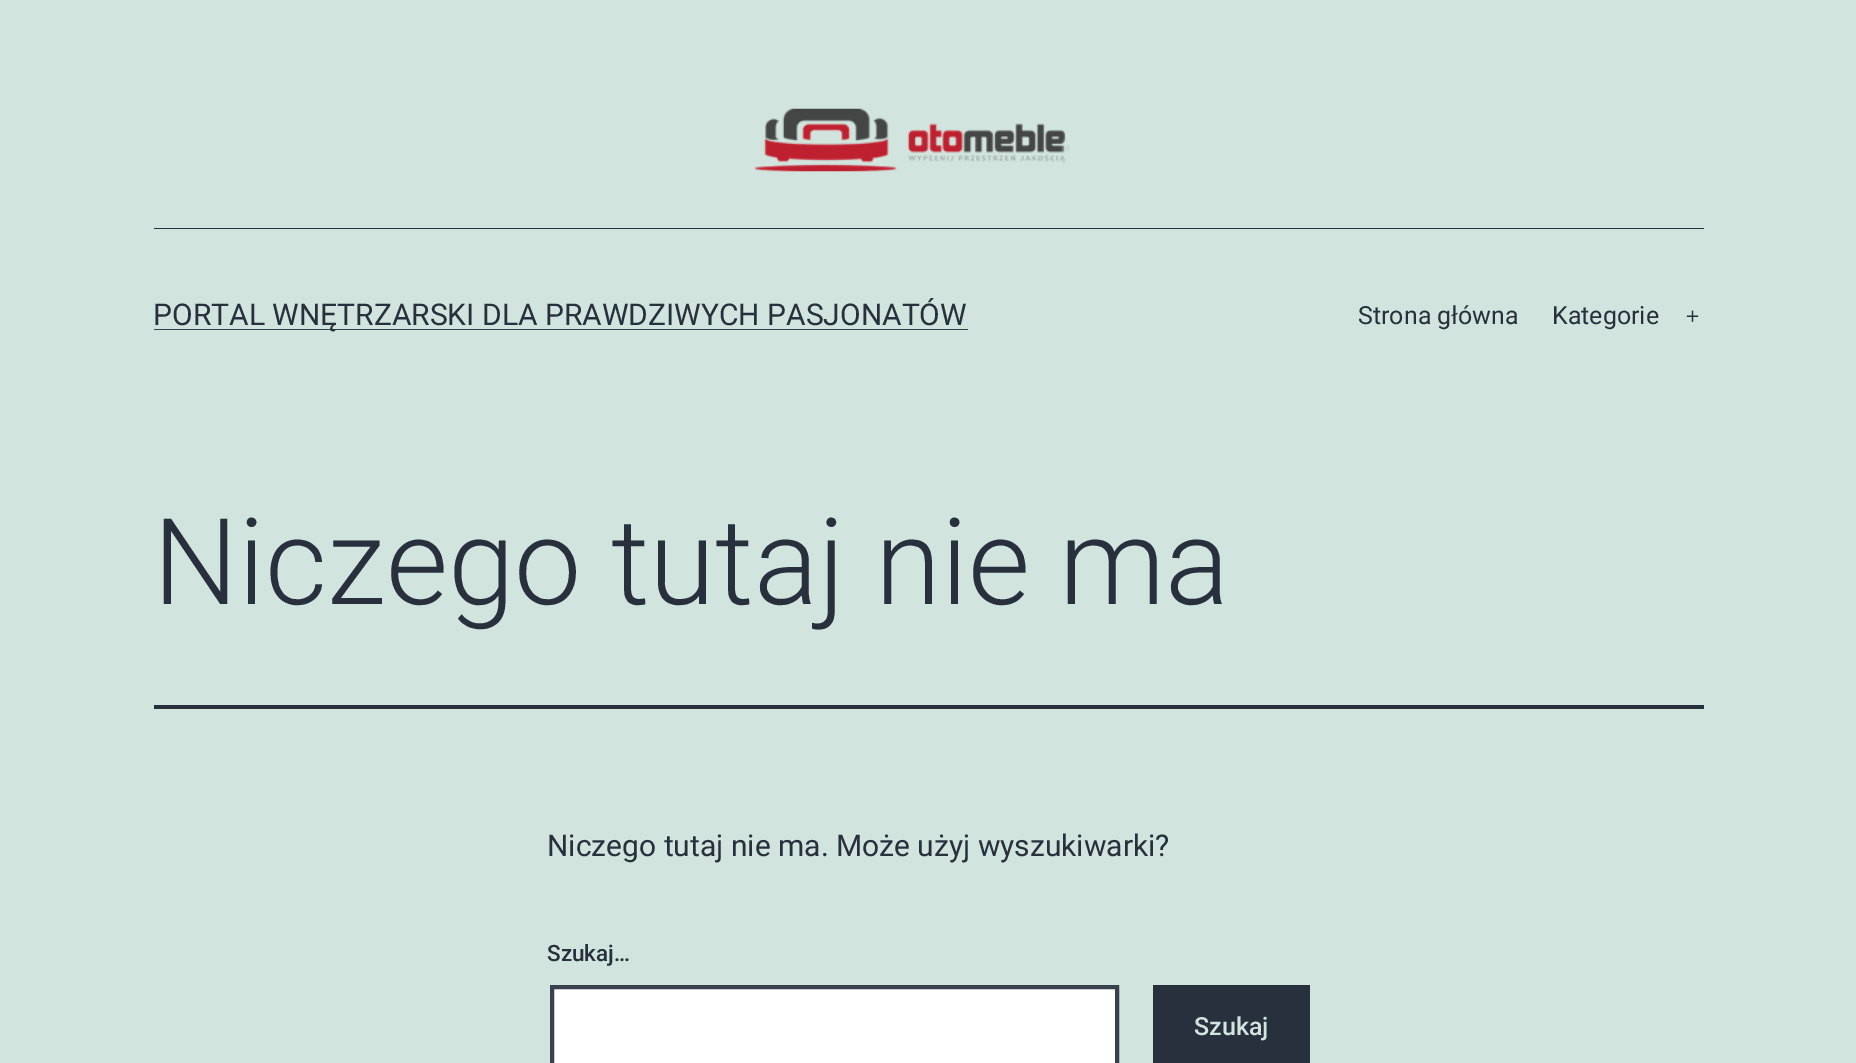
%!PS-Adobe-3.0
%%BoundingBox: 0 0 1856 1063
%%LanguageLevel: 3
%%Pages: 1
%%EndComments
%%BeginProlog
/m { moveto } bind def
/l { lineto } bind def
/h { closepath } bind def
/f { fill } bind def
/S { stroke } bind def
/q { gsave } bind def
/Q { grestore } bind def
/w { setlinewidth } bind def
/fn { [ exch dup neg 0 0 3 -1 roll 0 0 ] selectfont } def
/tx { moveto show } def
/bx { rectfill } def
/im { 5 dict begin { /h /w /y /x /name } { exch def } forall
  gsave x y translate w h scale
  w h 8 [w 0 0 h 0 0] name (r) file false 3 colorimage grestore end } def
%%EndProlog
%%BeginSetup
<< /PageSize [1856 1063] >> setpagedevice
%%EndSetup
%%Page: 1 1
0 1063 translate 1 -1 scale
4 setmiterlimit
0.82 0.894 0.867 setrgbcolor
0 0 1856 1063 bx
0.157 0.188 0.239 setrgbcolor
154 228 1550 1 bx
(image0.raw) 755 108 321 64 im
0.224 0.255 0.302 setrgbcolor
154 329 814 1 bx
/Roboto-Regular 30 fn
0.157 0.188 0.239 setrgbcolor
(PORTAL WNĘTRZARSKI DLA PRAWDZIWYCH PASJONATÓW) 153 325 tx
/Roboto-Regular 25 fn
(Strona główna) 1358 324 tx
(Kategorie) 1552 324 tx
(image1.raw) 1686 310 13 12 im
154 705 1550 4 bx
/Roboto-Light 120 fn
(Niczego tutaj nie ma) 153 604 tx
/Roboto-Regular 30 fn
(Niczego tutaj nie ma. Może użyj wyszukiwarki?) 547 856 tx
/Roboto-Medium 22.5 fn
(Szukaj…) 547 961 tx
1 setgray
552 987 m 1117 987 l 1117 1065 l 552 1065 l h q f Q
0.224 0.255 0.302 setrgbcolor
4 w
S
0.157 0.188 0.239 setrgbcolor
1153 985 157 78 bx
/Roboto-Medium 25 fn
0.82 0.894 0.867 setrgbcolor
(Szukaj) 1194 1035 tx
showpage
%%EOF
